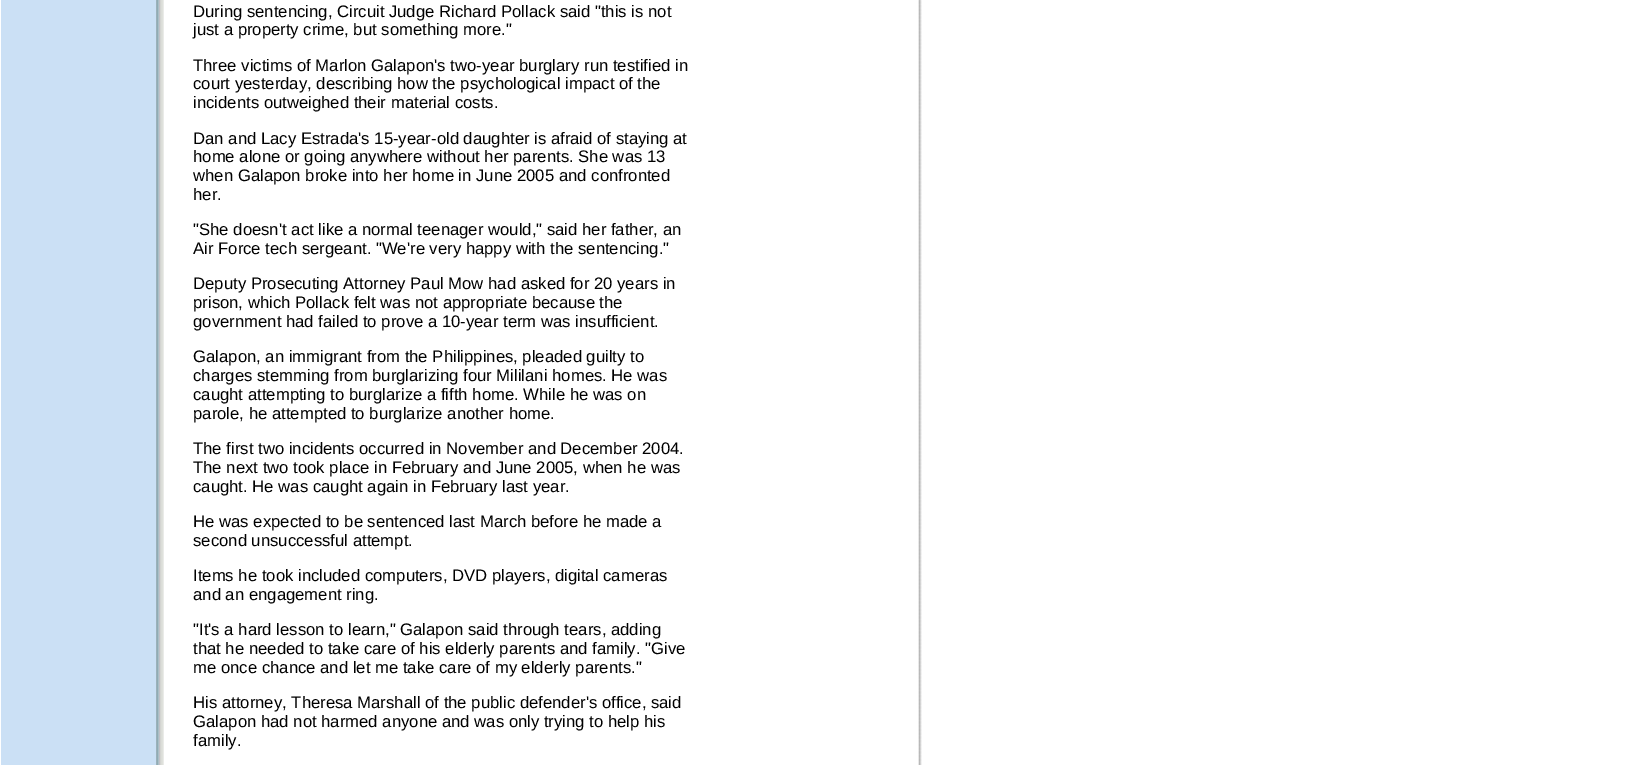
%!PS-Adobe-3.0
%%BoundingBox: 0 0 1636 765
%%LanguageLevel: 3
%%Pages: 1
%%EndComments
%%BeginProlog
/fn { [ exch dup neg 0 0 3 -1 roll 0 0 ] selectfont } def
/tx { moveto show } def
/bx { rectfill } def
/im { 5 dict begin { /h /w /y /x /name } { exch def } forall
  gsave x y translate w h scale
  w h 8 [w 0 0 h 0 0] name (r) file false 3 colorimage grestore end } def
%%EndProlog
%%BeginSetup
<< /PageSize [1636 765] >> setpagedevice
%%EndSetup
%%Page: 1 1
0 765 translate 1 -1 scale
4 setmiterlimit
1 setgray
0 0 1636 765 bx
0.796 0.878 0.961 setrgbcolor
1 0 155 765 bx
(image0.raw) 156 0 8 765 im
/LiberationSans-Regular 16.7 fn
0 setgray
(During sentencing, Circuit Judge Richard Pollack said "this is not) 193 17 tx
(just a property crime, but something more.") 193 35 tx
(Three victims of Marlon Galapon's two-year burglary run testified in) 193 71 tx
(court yesterday, describing how the psychological impact of the) 193 89 tx
(incidents outweighed their material costs.) 193 108 tx
(Dan and Lacy Estrada's 15-year-old daughter is afraid of staying at) 193 144 tx
(home alone or going anywhere without her parents. She was 13) 193 162 tx
(when Galapon broke into her home in June 2005 and confronted) 193 181 tx
(her.) 193 200 tx
("She doesn't act like a normal teenager would," said her father, an) 193 235 tx
(Air Force tech sergeant. "We're very happy with the sentencing.") 193 254 tx
(Deputy Prosecuting Attorney Paul Mow had asked for 20 years in) 193 289 tx
(prison, which Pollack felt was not appropriate because the) 193 308 tx
(government had failed to prove a 10-year term was insufficient.) 193 327 tx
(Galapon, an immigrant from the Philippines, pleaded guilty to) 193 362 tx
(charges stemming from burglarizing four Mililani homes. He was) 193 381 tx
(caught attempting to burglarize a fifth home. While he was on) 193 400 tx
(parole, he attempted to burglarize another home.) 193 419 tx
(The first two incidents occurred in November and December 2004.) 193 454 tx
(The next two took place in February and June 2005, when he was) 193 473 tx
(caught. He was caught again in February last year.) 193 492 tx
(He was expected to be sentenced last March before he made a) 193 527 tx
(second unsuccessful attempt.) 193 546 tx
(Items he took included computers, DVD players, digital cameras) 193 581 tx
(and an engagement ring.) 193 600 tx
("It's a hard lesson to learn," Galapon said through tears, adding) 193 635 tx
(that he needed to take care of his elderly parents and family. "Give) 193 654 tx
(me once chance and let me take care of my elderly parents.") 193 673 tx
(His attorney, Theresa Marshall of the public defender's office, said) 193 708 tx
(Galapon had not harmed anyone and was only trying to help his) 193 727 tx
(family.) 193 746 tx
(image1.raw) 918 0 4 765 im
showpage
%%EOF
